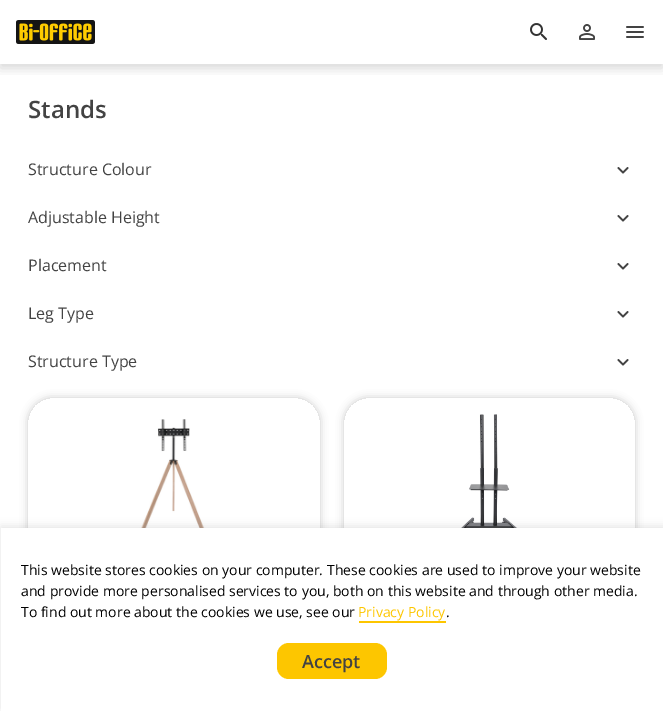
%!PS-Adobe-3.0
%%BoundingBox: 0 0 663 711
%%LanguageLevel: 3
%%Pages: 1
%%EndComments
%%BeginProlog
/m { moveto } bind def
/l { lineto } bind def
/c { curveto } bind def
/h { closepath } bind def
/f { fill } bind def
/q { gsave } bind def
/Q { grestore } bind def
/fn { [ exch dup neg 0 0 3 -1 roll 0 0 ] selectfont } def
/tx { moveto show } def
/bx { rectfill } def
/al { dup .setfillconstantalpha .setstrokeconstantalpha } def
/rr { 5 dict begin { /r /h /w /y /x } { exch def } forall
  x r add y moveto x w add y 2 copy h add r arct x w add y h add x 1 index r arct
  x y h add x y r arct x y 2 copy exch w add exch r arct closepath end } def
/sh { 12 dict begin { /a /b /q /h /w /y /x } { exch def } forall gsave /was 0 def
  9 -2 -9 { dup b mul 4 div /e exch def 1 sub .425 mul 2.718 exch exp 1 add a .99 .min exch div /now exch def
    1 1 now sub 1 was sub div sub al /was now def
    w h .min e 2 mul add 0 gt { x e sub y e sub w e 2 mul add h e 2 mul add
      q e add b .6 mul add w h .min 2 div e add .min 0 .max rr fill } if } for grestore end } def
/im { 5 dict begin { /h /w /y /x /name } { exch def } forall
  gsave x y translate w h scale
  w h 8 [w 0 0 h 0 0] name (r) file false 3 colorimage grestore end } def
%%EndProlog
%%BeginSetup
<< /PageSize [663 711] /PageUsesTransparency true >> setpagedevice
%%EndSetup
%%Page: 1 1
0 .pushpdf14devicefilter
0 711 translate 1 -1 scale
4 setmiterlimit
1 setgray
0 0 663 711 bx
q
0 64 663 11 rectclip
0 setgray
0 4 663 64 0 6 0.16 sh
Q
(image0.raw) 16 20 79 24 im
(image1.raw) 530 23 17 17 im
(image2.raw) 579 24 16 16 im
(image3.raw) 626 26 18 12 im
/OpenSans-SemiBold 24 fn
0.263 setgray
(Stands) 28 118 tx
/OpenSans-Regular 16 fn
(Structure Colour) 28 175 tx
(image4.raw) 617 167 12 7 im
(Adjustable Height) 28 223 tx
(image4.raw) 617 215 12 7 im
(Placement) 28 271 tx
(image4.raw) 617 263 12 7 im
(Leg Type) 28 319 tx
(image4.raw) 617 311 12 7 im
(Structure Type) 28 367 tx
(image4.raw) 617 359 12 7 im
q
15 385 m 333 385 l 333 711 l 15 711 l h 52 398 m 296 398 l 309.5 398 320 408.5 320 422 c 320 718 l 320 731.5 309.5 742 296 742 c 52 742 l 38.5 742 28 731.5 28 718 c 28 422 l 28 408.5 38.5 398 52 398 c h eoclip newpath
0 setgray
28 398 292 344 24 4 0.2 sh
Q
(image5.raw) 139 419 67 109 im
q
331 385 m 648 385 l 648 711 l 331 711 l h 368 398 m 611 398 l 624.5 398 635 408.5 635 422 c 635 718 l 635 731.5 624.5 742 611 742 c 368 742 l 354.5 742 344 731.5 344 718 c 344 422 l 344 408.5 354.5 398 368 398 c h eoclip newpath
0 setgray
344 398 291 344 24 4 0.2 sh
Q
(image6.raw) 450 414 78 114 im
0.478 setgray
1 526 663 183 0 4 0.2 sh
1 setgray
1 528 662 183 bx
/OpenSans-Regular 14 fn
0 setgray
(This website stores cookies on your computer. These cookies are used to improve your website) 21 575 tx
(and provide more personalised services to you, both on this website and through other media.) 21 596 tx
(To find out more about the cookies we use, see our) 21 617 tx
0.992 0.776 0 setrgbcolor
(Privacy Policy) 358 617 tx
359 621 87 2 bx
0 setgray
(.) 446 617 tx
0.992 0.776 0 setrgbcolor
277 643 110 36 12 rr f
/OpenSans-SemiBold 18 fn
0.263 setgray
(Accept) 302 668 tx
.poppdf14devicefilter showpage
%%EOF
